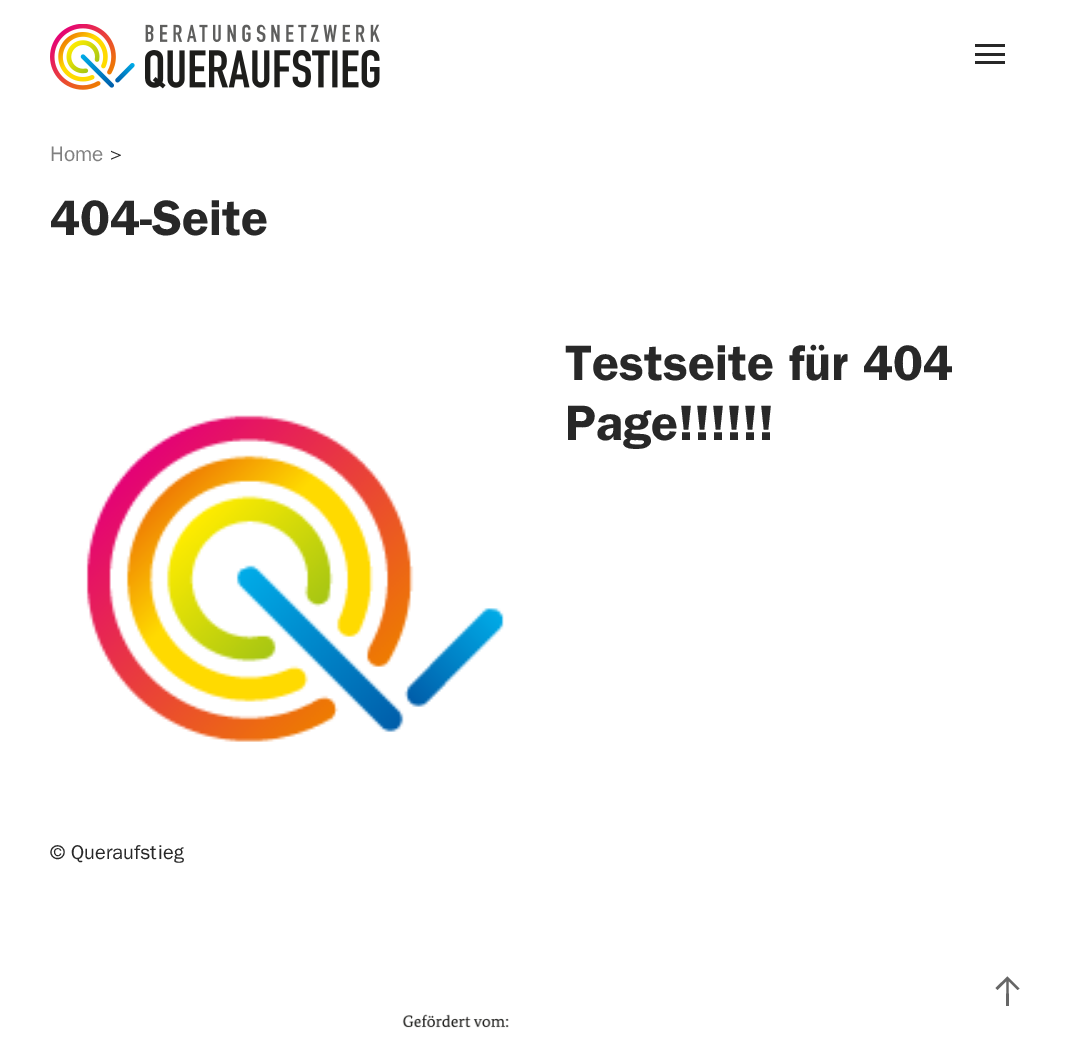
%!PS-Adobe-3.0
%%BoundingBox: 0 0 1079 1052
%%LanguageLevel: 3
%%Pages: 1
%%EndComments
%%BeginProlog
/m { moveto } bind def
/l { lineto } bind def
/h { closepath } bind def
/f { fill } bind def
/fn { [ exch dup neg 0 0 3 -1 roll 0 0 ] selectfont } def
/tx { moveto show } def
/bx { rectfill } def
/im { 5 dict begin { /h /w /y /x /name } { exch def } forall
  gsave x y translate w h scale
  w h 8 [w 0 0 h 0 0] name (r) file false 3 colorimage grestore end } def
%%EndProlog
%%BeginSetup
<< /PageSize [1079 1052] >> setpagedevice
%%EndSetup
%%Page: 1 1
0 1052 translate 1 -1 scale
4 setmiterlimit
1 setgray
0 0 1079 1052 bx
(image0.raw) 50 24 330 66 im
0.157 setgray
975 53 30 3 bx
975 44 30 3 bx
975 61 30 3 bx
/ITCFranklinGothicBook-Regular 21 fn
0.502 setgray
(Home) 50 161 tx
/ITCFranklinGothicBook-Regular 20 fn
0.157 setgray
(>) 110 161 tx
/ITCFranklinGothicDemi-Medium 50 fn
(404-Seite) 50 235 tx
(Testseite für 404) 565 380 tx
(Page!!!!!!) 565 440 tx
(image1.raw) 86 415 418 327 im
/ITCFranklinGothicBook-Regular 20 fn
(© Queraufstieg) 50 859 tx
0.4 setgray
1006 1006 m 1009 1006 l 1008.5 981 l 1017.5 990 l 1019.5 988.5 l 1007.5 976.5 l 995.5 988 l 997.5 990 l 1006.5 981 l h f
(image2.raw) 402 1014 107 14 im
showpage
%%EOF
